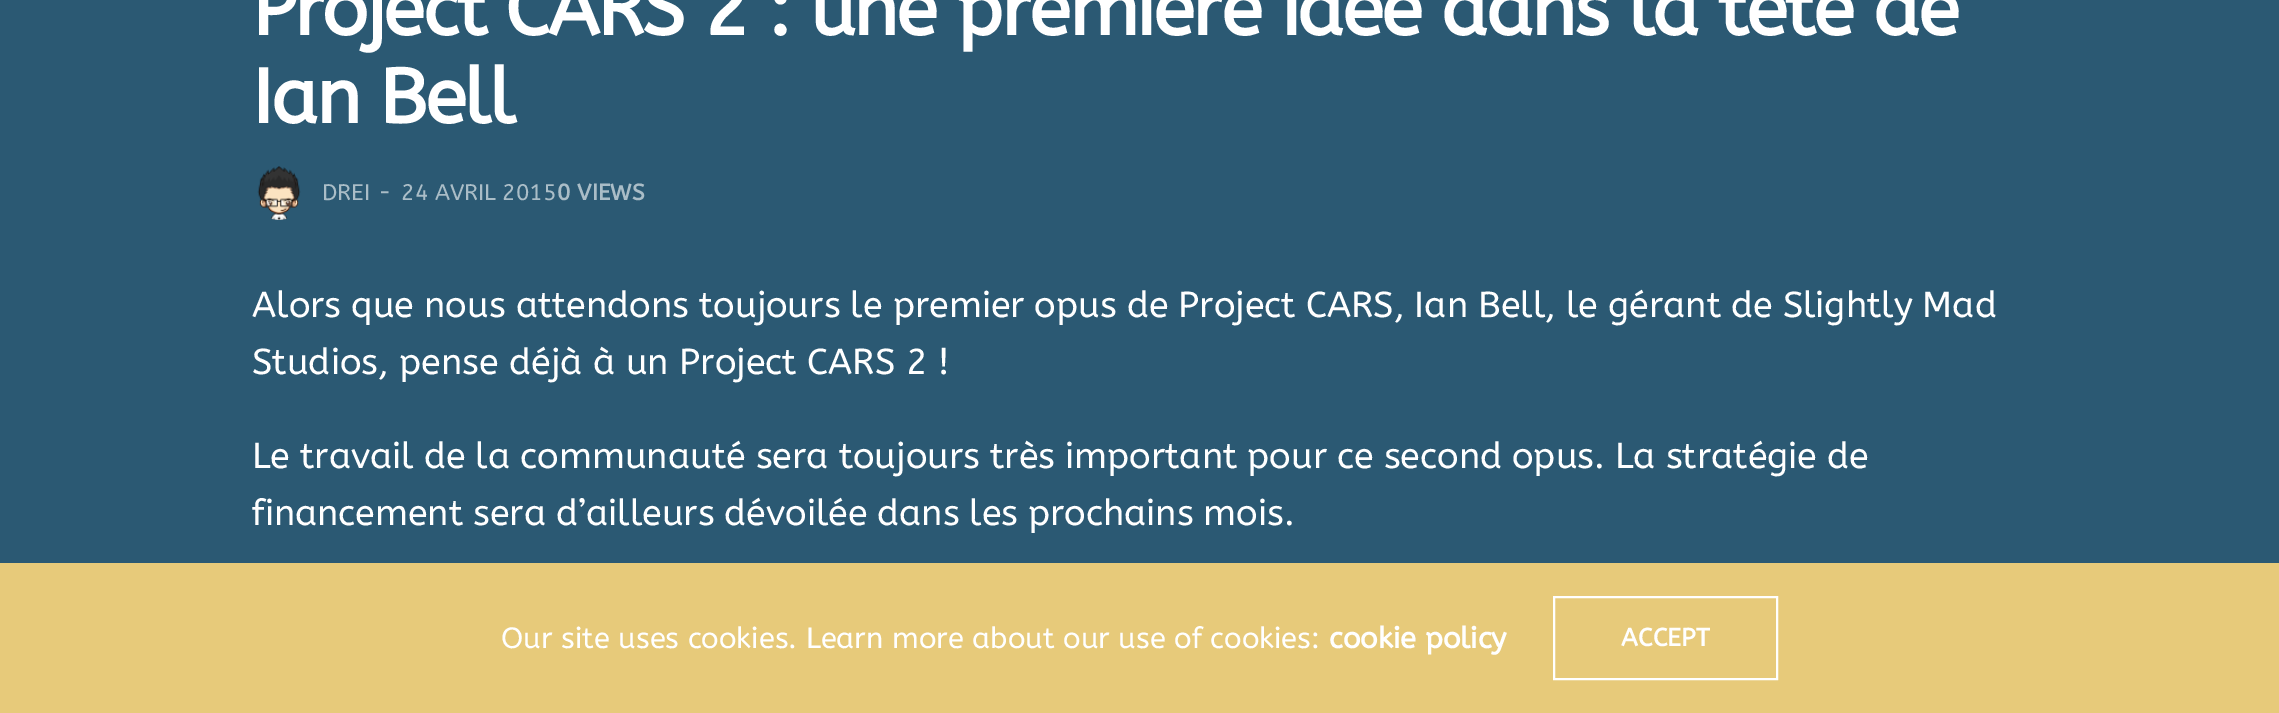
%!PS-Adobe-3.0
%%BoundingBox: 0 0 2279 713
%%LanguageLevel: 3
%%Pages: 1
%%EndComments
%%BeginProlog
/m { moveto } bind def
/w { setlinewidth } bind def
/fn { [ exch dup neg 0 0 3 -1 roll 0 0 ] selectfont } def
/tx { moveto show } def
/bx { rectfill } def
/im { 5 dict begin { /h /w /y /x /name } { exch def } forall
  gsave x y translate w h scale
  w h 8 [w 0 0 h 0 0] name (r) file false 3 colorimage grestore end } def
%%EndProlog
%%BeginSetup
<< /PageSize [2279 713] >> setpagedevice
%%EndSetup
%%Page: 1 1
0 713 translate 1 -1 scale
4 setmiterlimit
0.169 0.349 0.451 setrgbcolor
0 0 2279 713 bx
/ABeeZee-Bold 76.5 fn
1 setgray
252 35 m -2.3 0 (Project CARS 2 : une première idée dans la tête de) ashow
252 123 m -2.3 0 (Ian Bell) ashow
(image0.raw) 257 166 44 54 im
/ABeeZee-Regular 22.5 fn
0.667 0.741 0.78 setrgbcolor
(DREI) 322 200 tx
(-) 378 200 tx
(24 AVRIL 2015) 401 200 tx
/ABeeZee-Bold 22.5 fn
(0 VIEWS) 557 200 tx
/ABeeZee-Regular 36 fn
1 setgray
252 317 m -0.75 0 32 (Alors que nous attendons toujours le premier opus de Project CARS, Ian Bell, le gérant de Slightly Mad) widthshow
252 374 m -0.25 0 32 (Studios, pense déjà à un Project CARS 2 !) widthshow
252 468 m -0.75 0 32 (Le travail de la communauté sera toujours très important pour ce second opus. La stratégie de) widthshow
252 525 m -1 0 32 (financement sera d’ailleurs dévoilée dans les prochains mois.) widthshow
0.906 0.792 0.478 setrgbcolor
0 563 2279 150 bx
/ABeeZee-Regular 29.25 fn
1 setgray
501 648 m -0.25 0 32 (Our site uses cookies. Learn more about our use of cookies:) widthshow
/ABeeZee-Bold 29.25 fn
(cookie policy) 1329 648 tx
2 w
1554 597 223 82 rectstroke
/ABeeZee-Bold 25 fn
(ACCEPT) 1621 646 tx
showpage
%%EOF
